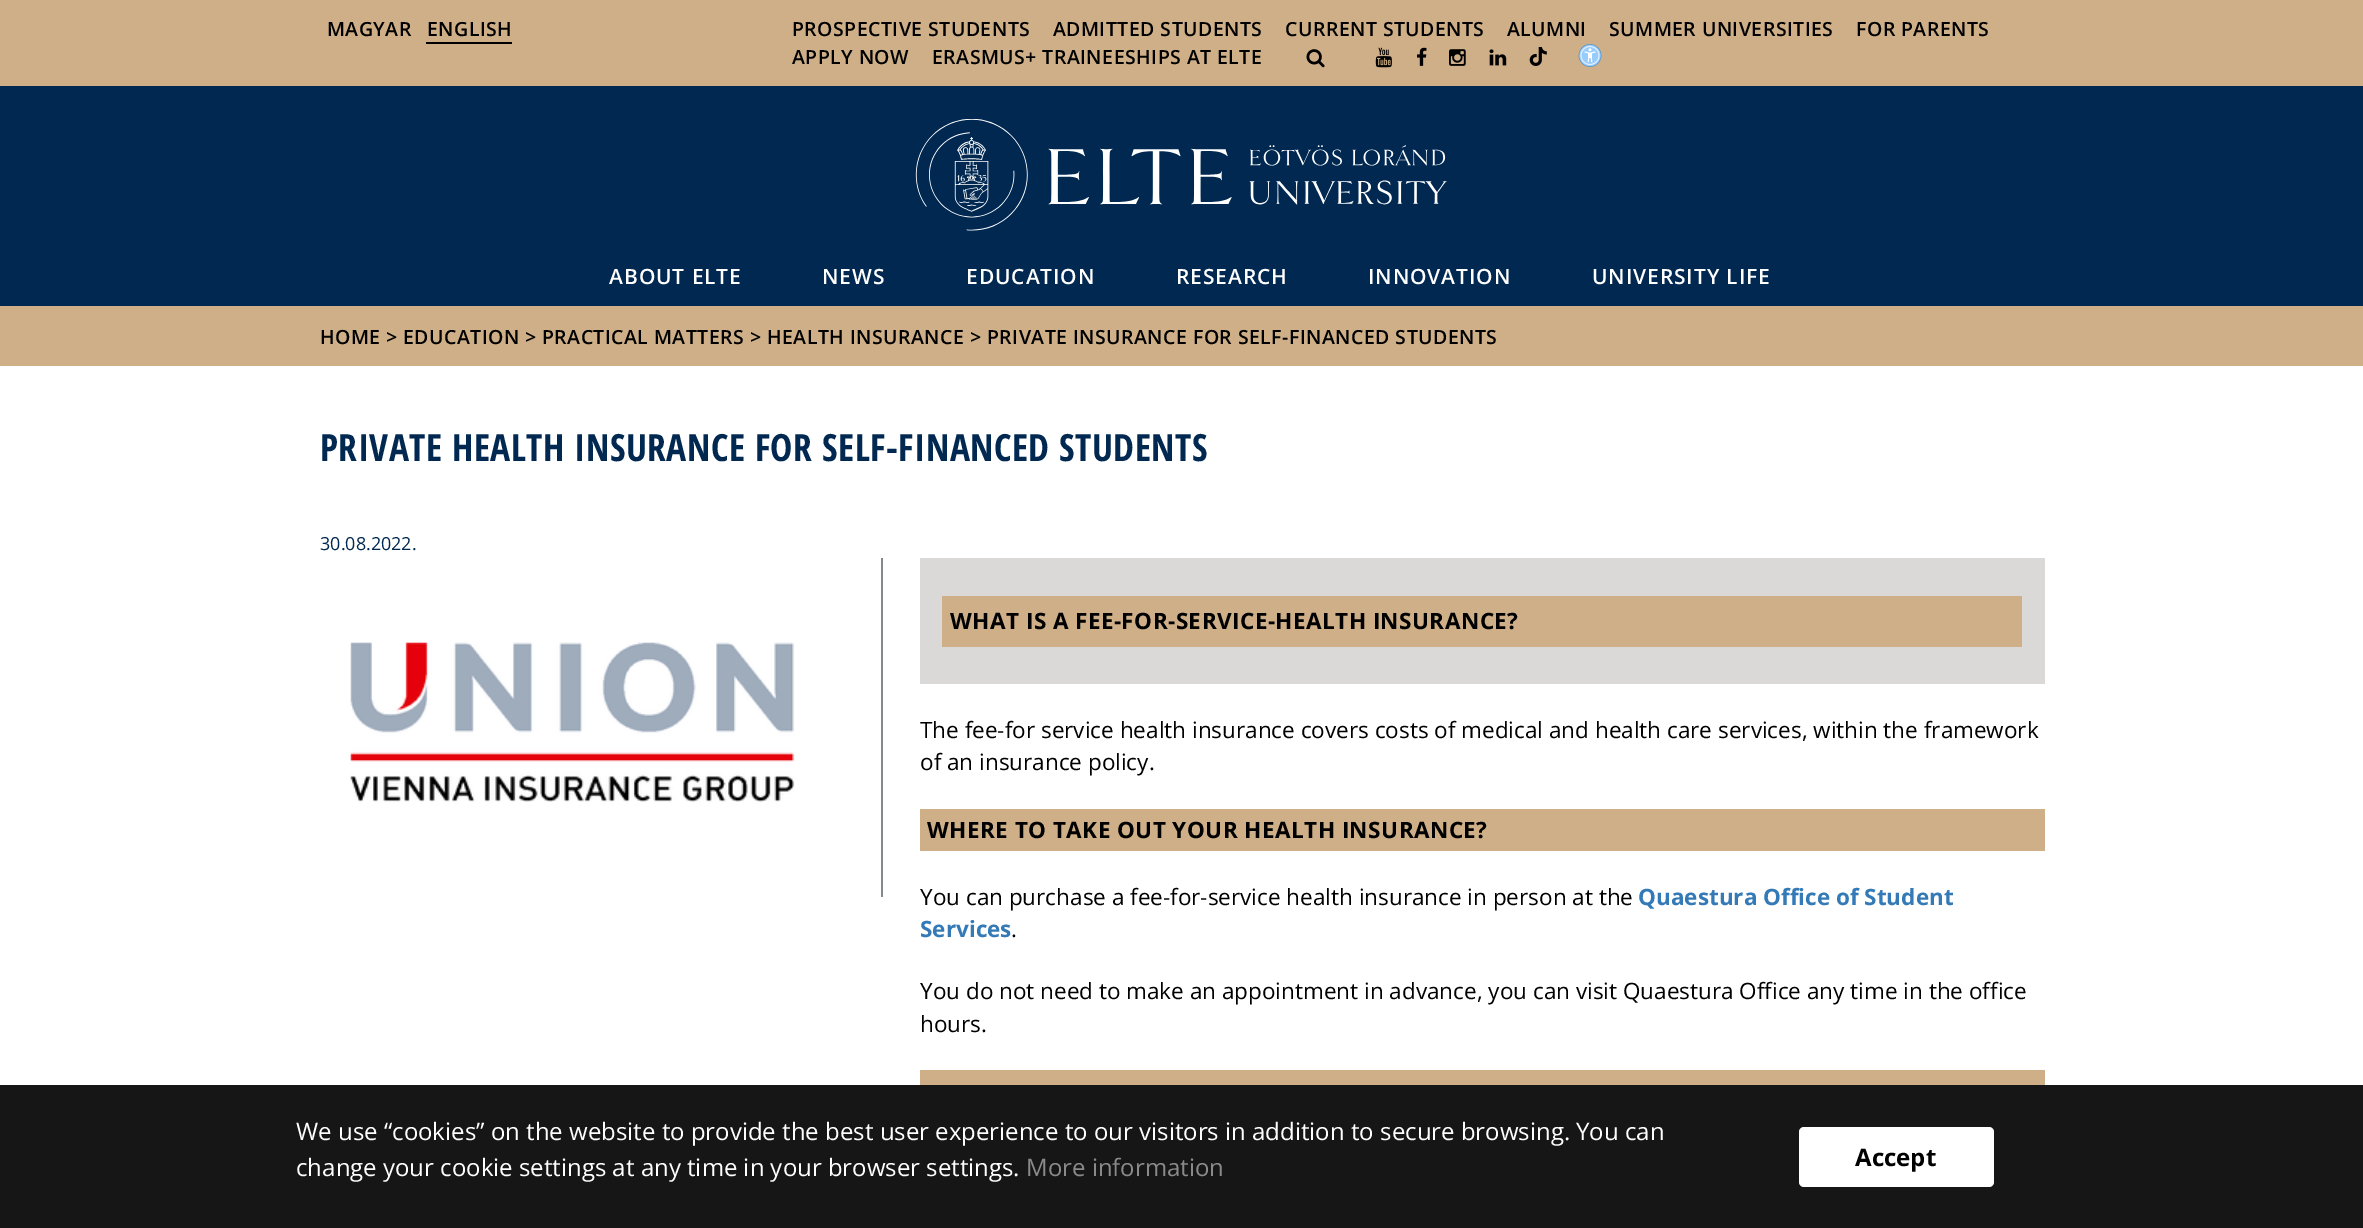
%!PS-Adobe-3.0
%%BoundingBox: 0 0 2363 1228
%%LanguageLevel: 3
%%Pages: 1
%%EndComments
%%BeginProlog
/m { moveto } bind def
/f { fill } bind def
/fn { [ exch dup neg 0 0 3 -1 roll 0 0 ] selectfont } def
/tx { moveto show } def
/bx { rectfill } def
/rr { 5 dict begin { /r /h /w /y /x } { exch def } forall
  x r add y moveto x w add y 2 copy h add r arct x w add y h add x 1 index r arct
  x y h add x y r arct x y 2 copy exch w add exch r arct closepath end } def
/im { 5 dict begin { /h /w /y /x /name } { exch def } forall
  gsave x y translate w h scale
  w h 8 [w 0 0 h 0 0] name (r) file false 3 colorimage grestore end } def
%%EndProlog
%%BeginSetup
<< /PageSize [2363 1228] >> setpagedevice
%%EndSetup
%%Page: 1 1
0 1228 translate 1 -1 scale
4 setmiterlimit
1 setgray
0 0 2363 1228 bx
0.808 0.686 0.529 setrgbcolor
0 0 2363 86 bx
/OpenSans-SemiBold 19.5 fn
0 setgray
327 36 m 0.45 0 (MAGYAR) ashow
427 36 m 0.45 0 (ENGLISH) ashow
426 42 86 2 bx
792 36 m 0.45 0 (PROSPECTIVE STUDENTS) ashow
1053 36 m 0.45 0 (ADMITTED STUDENTS) ashow
1285 36 m 0.45 0 (CURRENT STUDENTS) ashow
1507 36 m 0.45 0 (ALUMNI) ashow
1609 36 m 0.45 0 (SUMMER UNIVERSITIES) ashow
1856 36 m 0.45 0 (FOR PARENTS) ashow
792 64 m 0.45 0 (APPLY NOW) ashow
932 64 m 0.45 0 (ERASMUS+ TRAINEESHIPS AT ELTE) ashow
(image0.raw) 1306 49 19 19 im
(image1.raw) 1375 47 17 21 im
(image2.raw) 1417 47 10 19 im
(image3.raw) 1449 49 17 17 im
(image4.raw) 1489 49 18 17 im
(image5.raw) 1529 47 18 19 im
(image6.raw) 1578 44 24 23 im
0.004 0.157 0.318 setrgbcolor
0 86 2363 220 bx
(image7.raw) 915 119 532 112 im
/OpenSans-SemiBold 21 fn
1 setgray
609 284 m 0.9 0 (ABOUT ELTE) ashow
822 284 m 0.9 0 (NEWS) ashow
966 284 m 0.9 0 (EDUCATION) ashow
1176 284 m 0.9 0 (RESEARCH) ashow
1368 284 m 0.9 0 (INNOVATION) ashow
1592 284 m 0.9 0 (UNIVERSITY LIFE) ashow
0.808 0.686 0.529 setrgbcolor
0 306 2363 60 bx
/OpenSans-SemiBold 19.5 fn
0 setgray
320 344 m 0.45 0 (HOME >) ashow
403 344 m 0.45 0 (EDUCATION >) ashow
542 344 m 0.45 0 (PRACTICAL MATTERS >) ashow
767 344 m 0.45 0 (HEALTH INSURANCE >) ashow
987 344 m 0.45 0 (PRIVATE INSURANCE FOR SELF-FINANCED STUDENTS) ashow
/OpenSansCondensed-Bold 37.5 fn
0.004 0.157 0.318 setrgbcolor
320 461 m 0.45 0 (PRIVATE HEALTH INSURANCE FOR SELF-FINANCED STUDENTS) ashow
/OpenSans-Regular 18 fn
(30.08.2022.) 320 550 tx
0.506 0.541 0.576 setrgbcolor
881 558 2 339 bx
(image8.raw) 350 642 445 160 im
0.855 0.851 0.847 setrgbcolor
920 558 1125 126 bx
0.808 0.686 0.529 setrgbcolor
942 596 1080 51 bx
/OpenSans-Bold 22.5 fn
0 setgray
950 629 m 0.45 0 (WHAT IS A FEE-FOR-SERVICE-HEALTH INSURANCE?) ashow
/OpenSans-Regular 22.5 fn
(The fee-for service health insurance covers costs of medical and health care services, within the framework) 920 738 tx
(of an insurance policy.) 920 770 tx
0.808 0.686 0.529 setrgbcolor
920 809 1125 42 bx
/OpenSans-Bold 22.5 fn
0 setgray
927 838 m 0.45 0 (WHERE TO TAKE OUT YOUR HEALTH INSURANCE?) ashow
/OpenSans-Regular 22.5 fn
(You can purchase a fee-for-service health insurance in person at the) 920 905 tx
/OpenSans-Bold 22.5 fn
0.2 0.478 0.718 setrgbcolor
(Quaestura Office of Student) 1638 905 tx
(Services) 920 937 tx
/OpenSans-Regular 22.5 fn
0 setgray
(.) 1011 937 tx
(You do not need to make an appointment in advance, you can visit Quaestura Office any time in the office) 920 999 tx
(hours.) 920 1032 tx
0.808 0.686 0.529 setrgbcolor
920 1070 1125 15 bx
0.086 setgray
0 1085 2363 143 bx
/OpenSans-Regular 24 fn
1 setgray
(We use “cookies” on the website to provide the best user experience to our visitors in addition to secure browsing. You can) 296 1140 tx
(change your cookie settings at any time in your browser settings.) 296 1176 tx
0.541 setgray
(More information) 1026 1176 tx
1 setgray
1799 1127 195 60 5 rr f
/OpenSans-Bold 24 fn
0 setgray
(Accept) 1855 1166 tx
showpage
%%EOF
